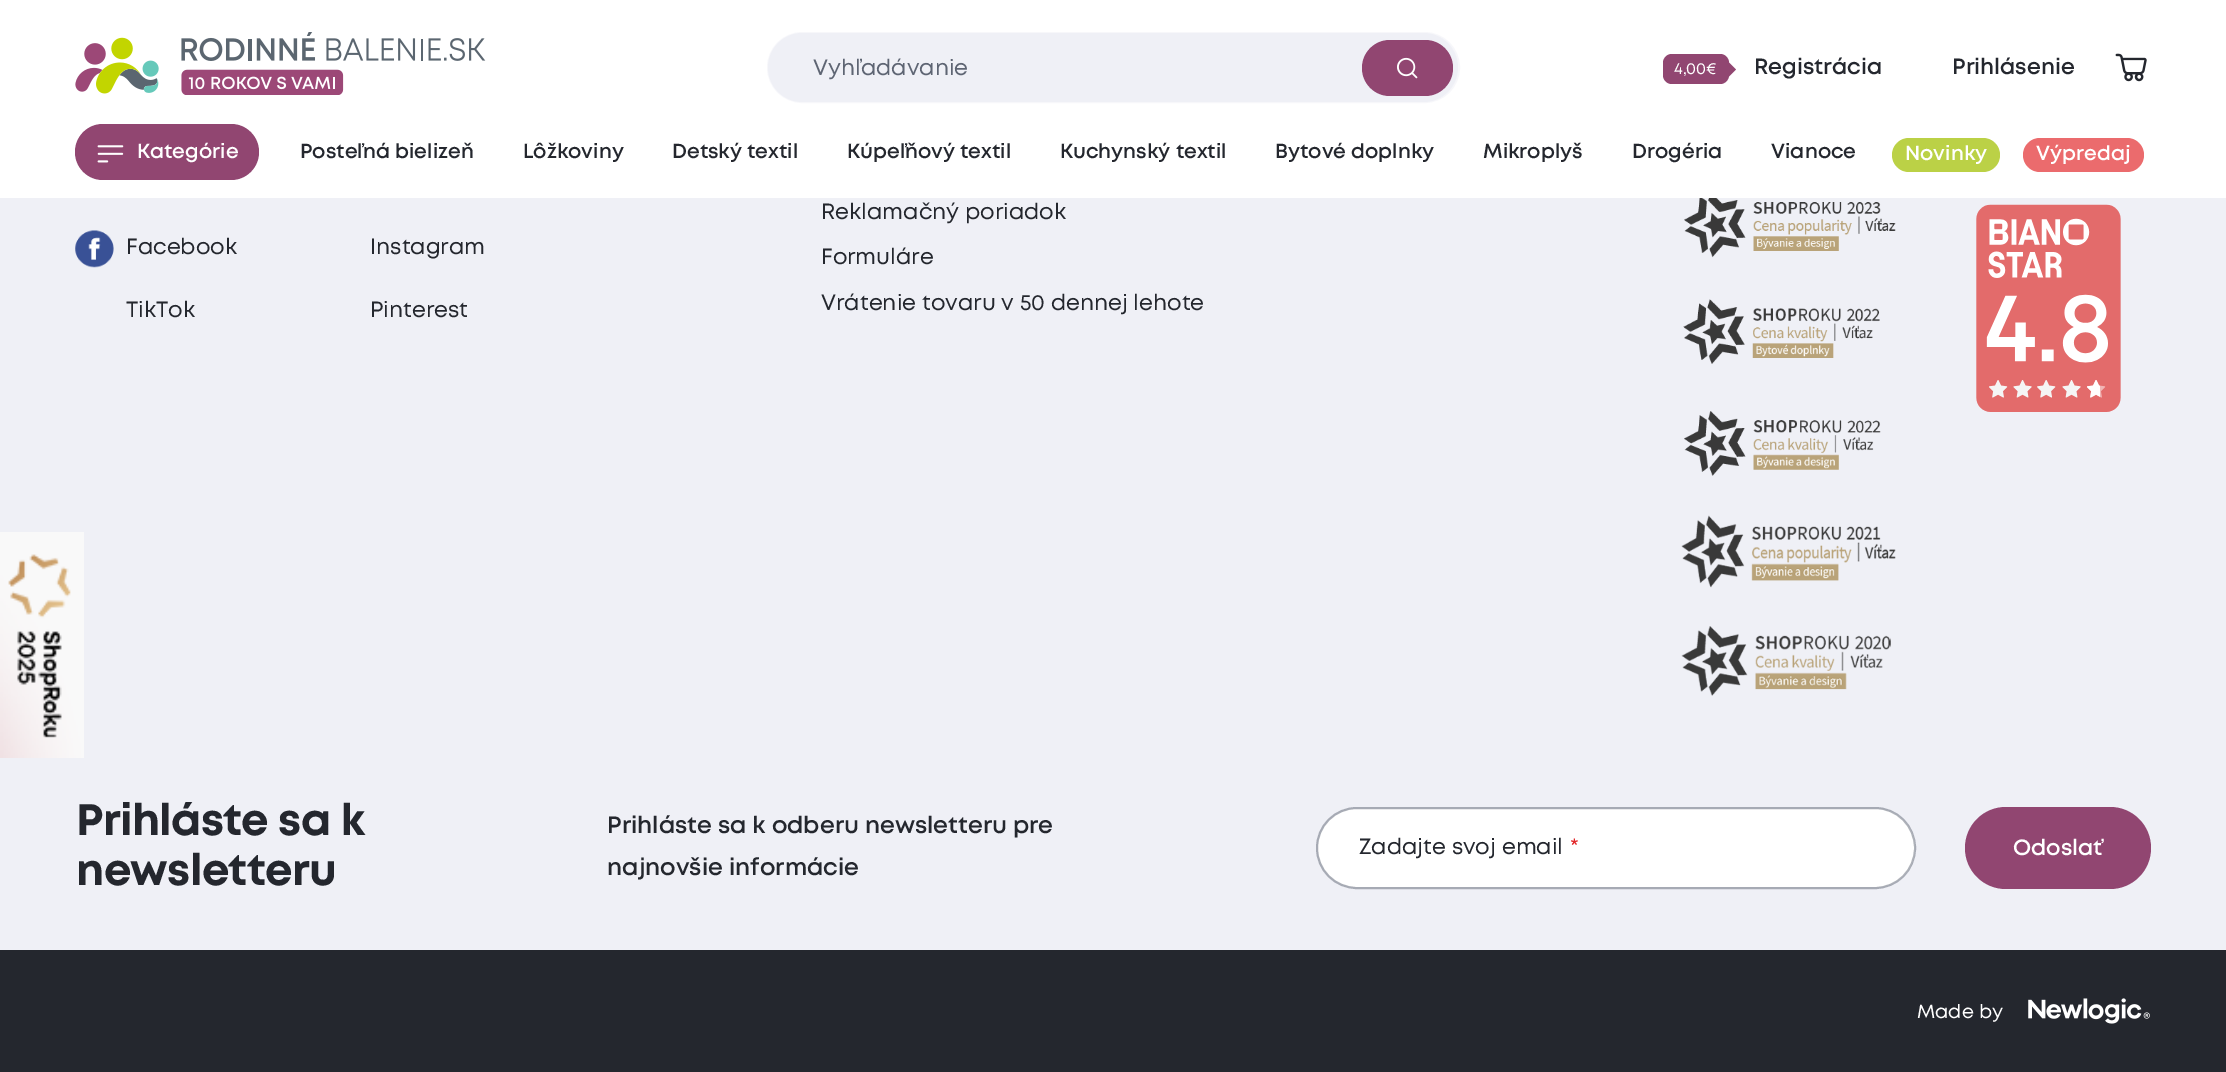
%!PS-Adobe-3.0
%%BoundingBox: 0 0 2226 1072
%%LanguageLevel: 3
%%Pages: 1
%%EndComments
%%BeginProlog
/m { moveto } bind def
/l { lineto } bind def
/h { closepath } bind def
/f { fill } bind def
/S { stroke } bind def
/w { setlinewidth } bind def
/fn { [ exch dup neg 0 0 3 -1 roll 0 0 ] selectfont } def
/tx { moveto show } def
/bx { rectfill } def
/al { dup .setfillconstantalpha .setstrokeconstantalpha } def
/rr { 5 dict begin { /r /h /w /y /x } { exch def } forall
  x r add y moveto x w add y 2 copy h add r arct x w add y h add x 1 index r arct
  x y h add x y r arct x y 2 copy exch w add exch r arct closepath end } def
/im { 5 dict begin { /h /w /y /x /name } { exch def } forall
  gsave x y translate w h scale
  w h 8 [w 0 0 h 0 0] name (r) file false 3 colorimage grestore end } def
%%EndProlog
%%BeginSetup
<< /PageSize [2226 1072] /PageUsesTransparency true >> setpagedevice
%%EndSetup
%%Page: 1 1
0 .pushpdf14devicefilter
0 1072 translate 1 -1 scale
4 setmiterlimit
0.937 0.941 0.965 setrgbcolor
0 0 2226 1072 bx
(image0.raw) 0 532 84 226 im
1 setgray
0 0 2226 198 bx
(image1.raw) 75 32 411 63 im
0.937 0.941 0.965 setrgbcolor
768 33 690 69 34.5 rr f
0.5 al
2 w
768 33 691 69 34.5 rr S
/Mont-Regular 22 fn
1 al
0.369 0.396 0.451 setrgbcolor
(Vyhľadávanie) 813 75 tx
0.569 0.275 0.443 setrgbcolor
1362 40 91 56 28 rr f
(image2.raw) 1397 57 21 22 im
1663 54 66 30 9 rr f
/Mont-Regular 16 fn
1 setgray
(4,00€) 1674 74 tx
0.569 0.275 0.443 setrgbcolor
1729 62.5 m 1736 69.5 l 1729 76.5 l 1721.5 69.5 l h f
/Mont-SemiBold 22 fn
0.141 0.153 0.18 setrgbcolor
(Registrácia) 1754 74 tx
(Prihlásenie) 1952 74 tx
(image3.raw) 2115 53 32 29 im
0.569 0.275 0.443 setrgbcolor
75 124 184 56 28 rr f
(image4.raw) 97 145 27 18 im
/Mont-SemiBold 20.25 fn
1 setgray
(Kategórie) 137 158 tx
0.141 0.153 0.18 setrgbcolor
(Posteľná bielizeň) 300 158 tx
(Lôžkoviny) 523 158 tx
(Detský textil) 672 158 tx
(Kúpeľňový textil) 847 158 tx
(Kuchynský textil) 1060 158 tx
(Bytové doplnky) 1275 158 tx
(Mikroplyš) 1483 158 tx
(Drogéria) 1632 158 tx
(Vianoce) 1771 158 tx
0.733 0.82 0.275 setrgbcolor
1892 138 108 34 17 rr f
1 setgray
(Novinky) 1905 160 tx
0.922 0.42 0.427 setrgbcolor
2023 138 121 34 17 rr f
1 setgray
(Výpredaj) 2036 160 tx
(image5.raw) 75 230 39 38 im
/Mont-Regular 22 fn
0.141 0.153 0.18 setrgbcolor
(Facebook) 126 254 tx
(Instagram) 370 254 tx
(TikTok) 126 317 tx
(Pinterest) 370 317 tx
(Reklamačný poriadok) 821 219 tx
(Formuláre) 821 264 tx
(Vrátenie tovaru v 50 dennej lehote) 821 310 tx
(image6.raw) 1684 198 212 60 im
(image7.raw) 1683 299 197 65 im
(image8.raw) 1684 411 197 65 im
(image9.raw) 1681 515 215 73 im
(image10.raw) 1681 626 210 70 im
(image11.raw) 1976 204 145 208 im
/Mont-Bold 44 fn
76 835 m -0.7 0 (Prihláste sa k) ashow
76 885 m -0.7 0 (newsletteru) ashow
/Mont-SemiBold 23.6 fn
(Prihláste sa k odberu newsletteru pre) 607 833 tx
(najnovšie informácie) 607 875 tx
1 setgray
1318 809 597 78 39 rr f
0.5 al
0.369 0.396 0.451 setrgbcolor
1317 808 598 80 40 rr S
/Mont-Regular 22 fn
1 al
0.141 0.153 0.18 setrgbcolor
(Zadajte svoj email) 1359 854 tx
0.886 0.157 0.169 setrgbcolor
(*) 1570 854 tx
0.569 0.275 0.443 setrgbcolor
1965 807 186 82 41 rr f
/Mont-SemiBold 22 fn
1 setgray
(Odoslať) 2013 855 tx
0.141 0.153 0.18 setrgbcolor
0 950 2226 122 bx
/Mont-Regular 19 fn
1 setgray
(Made by) 1917 1018 tx
(image12.raw) 2028 998 122 26 im
.poppdf14devicefilter showpage
%%EOF
